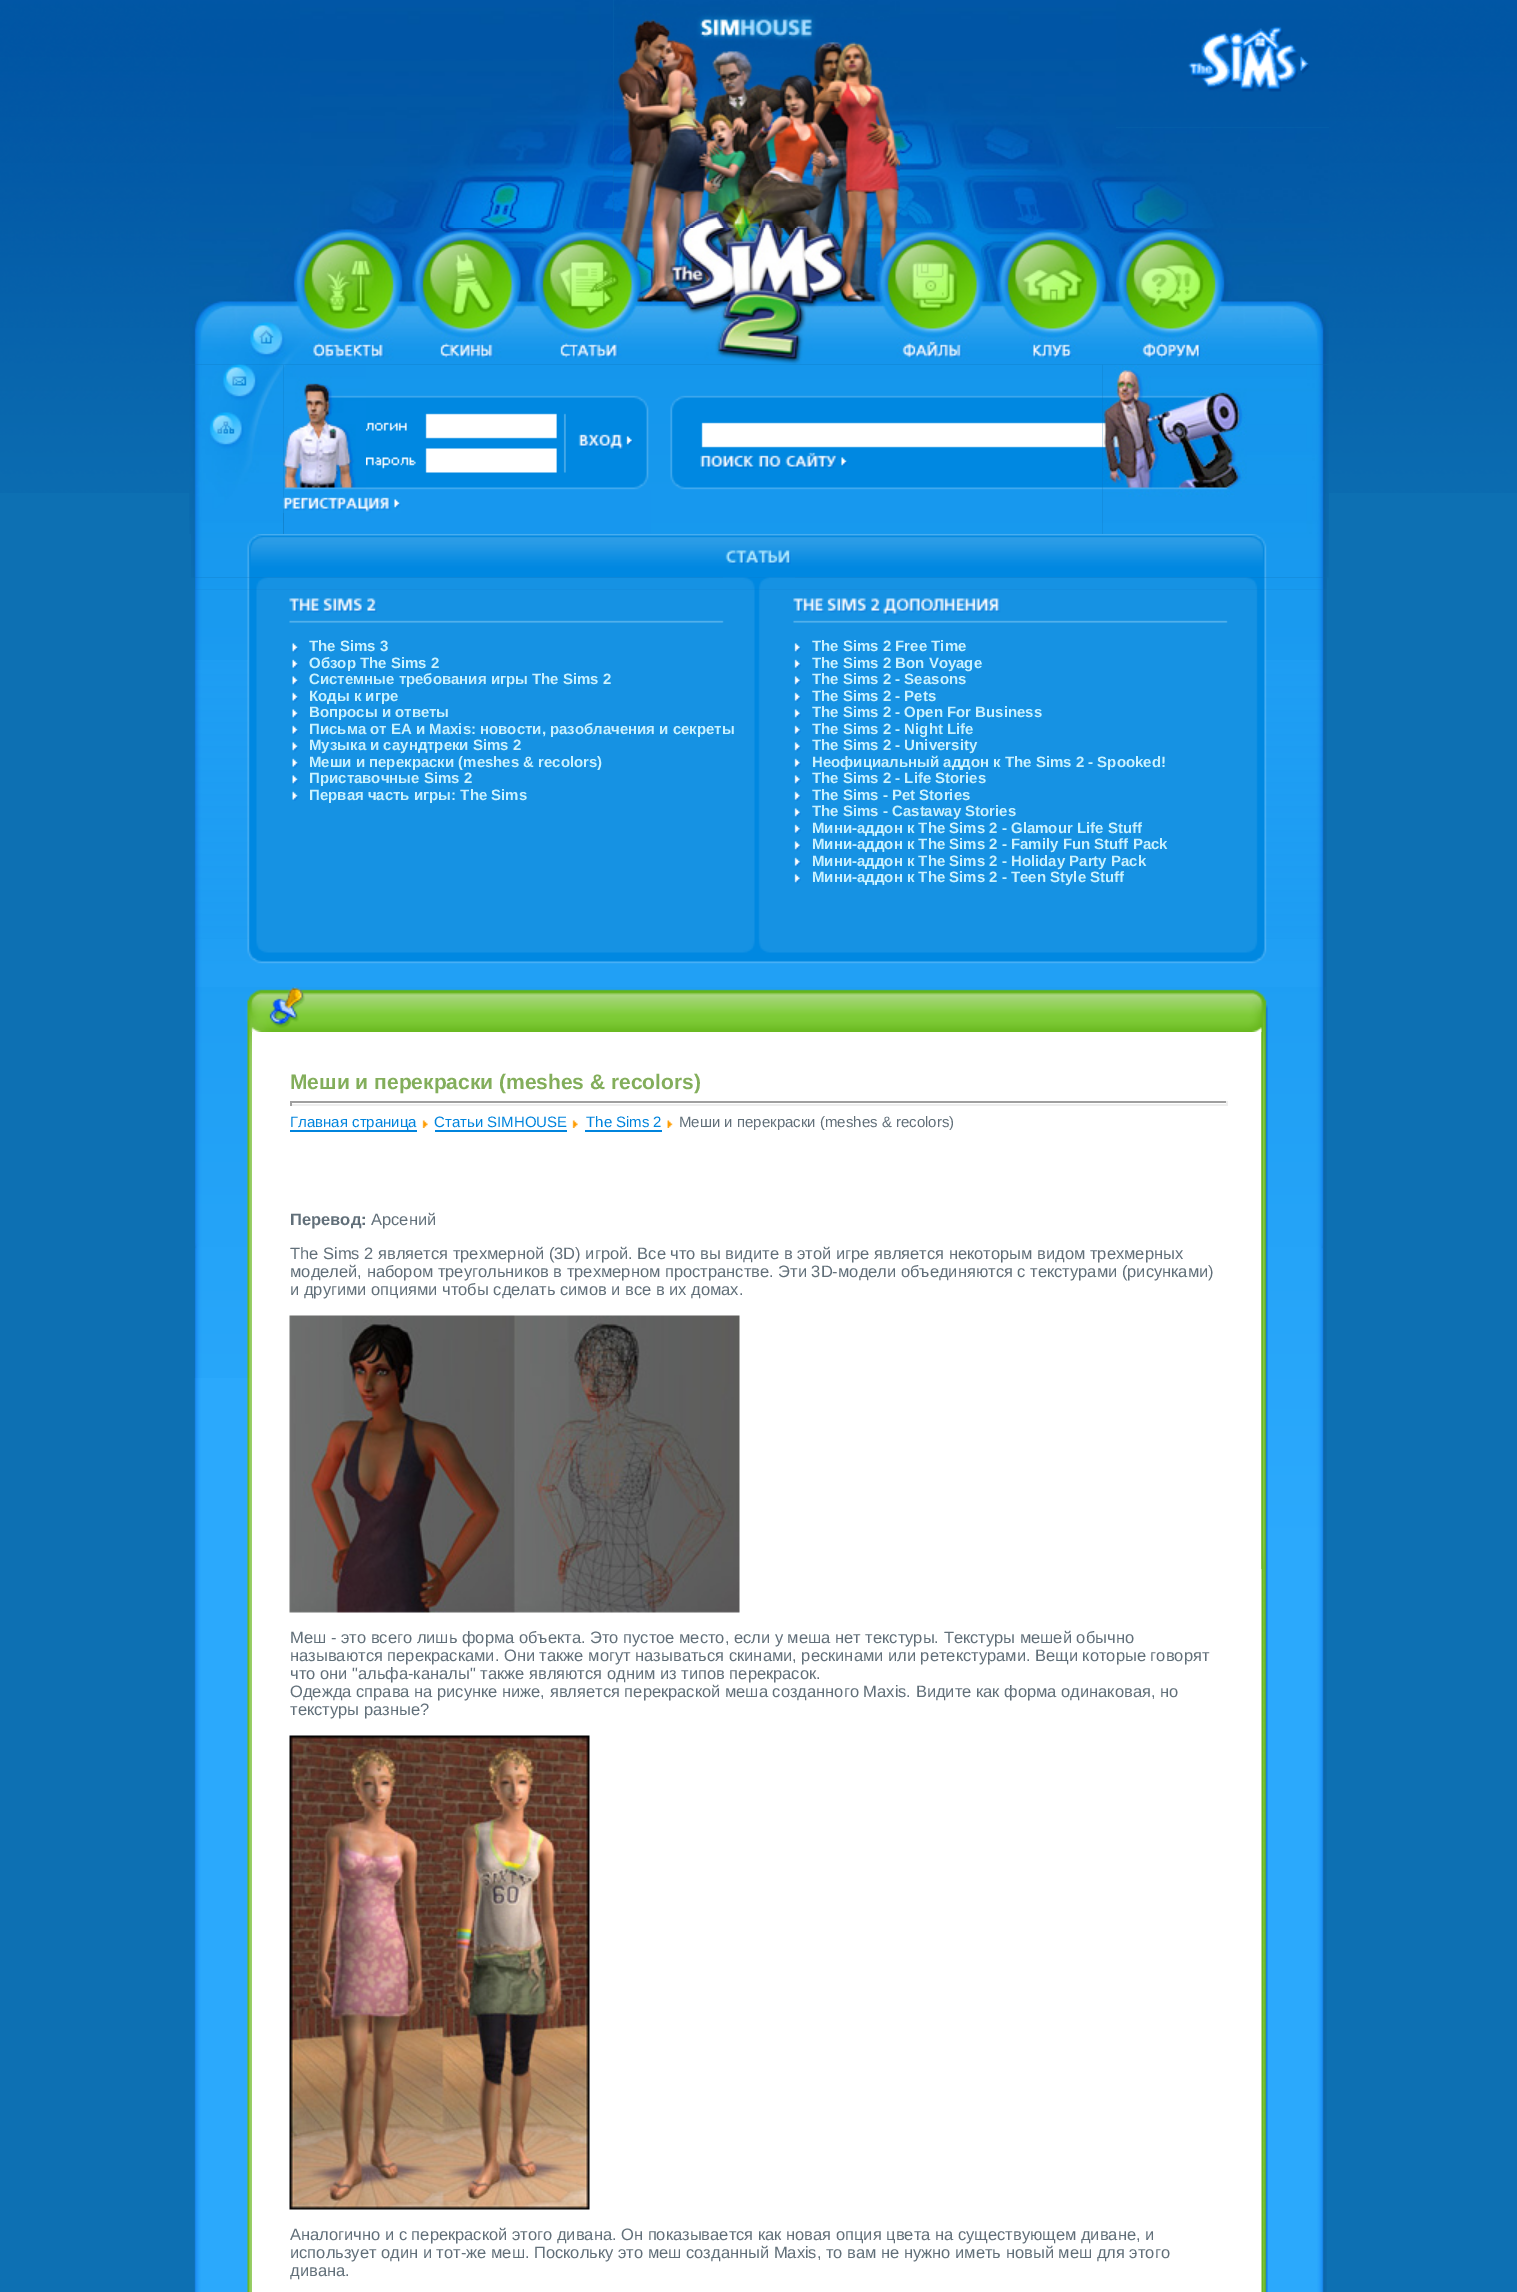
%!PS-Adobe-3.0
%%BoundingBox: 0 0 1517 2292
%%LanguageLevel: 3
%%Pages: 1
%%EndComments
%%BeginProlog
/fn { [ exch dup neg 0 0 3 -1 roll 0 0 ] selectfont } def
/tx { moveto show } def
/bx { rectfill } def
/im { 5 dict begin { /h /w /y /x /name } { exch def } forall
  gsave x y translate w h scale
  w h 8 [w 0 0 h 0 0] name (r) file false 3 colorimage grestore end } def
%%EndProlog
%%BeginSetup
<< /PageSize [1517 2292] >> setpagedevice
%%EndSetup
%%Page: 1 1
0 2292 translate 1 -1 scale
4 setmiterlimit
0.051 0.439 0.702 setrgbcolor
0 0 1517 2292 bx
(image0.raw) 0 0 189 493 im
(image1.raw) 1329 0 188 493 im
(image2.raw) 189 0 111 228 im
(image3.raw) 300 0 314 228 im
(image4.raw) 613 0 287 228 im
(image5.raw) 900 0 216 228 im
(image6.raw) 1116 0 213 128 im
(image7.raw) 1116 127 213 101 im
(image11.raw) 366 364 285 126 im
(image14.raw) 651 364 452 170 im
(image8.raw) 189 228 1140 137 im
(image9.raw) 189 364 95 170 im
(image10.raw) 283 364 83 133 im
0.09 0.592 0.933 setrgbcolor
366 490 285 7 bx
(image12.raw) 578 434 55 16 im
284 497 367 37 bx
(image13.raw) 283 496 118 17 im
(image15.raw) 1102 364 227 170 im
(image16.raw) 191 534 1138 44 im
(image17.raw) 723 550 72 28 im
(image19.raw) 194 589 1133 350 im
(image20.raw) 195 589 1128 71 im
(image18.raw) 195 577 1132 13 im
(image21.raw) 292 643 7 10 im
/LiberationSans-Bold 15 fn
0.788 0.949 1 setrgbcolor
(The Sims 3) 309 651 tx
(image22.raw) 292 659 7 10 im
(Обзор The Sims 2) 309 668 tx
(image21.raw) 292 676 7 10 im
(Системные требования игры The Sims 2) 309 684 tx
(image22.raw) 292 692 7 10 im
(Коды к игре) 309 701 tx
(image21.raw) 292 709 7 10 im
(Вопросы и ответы) 309 717 tx
(image22.raw) 292 725 7 10 im
(Письма от EA и Maxis: новости, разоблачения и секреты) 309 734 tx
(image21.raw) 292 742 7 10 im
(Музыка и саундтреки Sims 2) 309 750 tx
(image22.raw) 292 758 7 10 im
(Меши и перекраски \(meshes & recolors\)) 309 767 tx
(image21.raw) 292 775 7 10 im
(Приставочные Sims 2) 309 783 tx
(image22.raw) 292 791 7 10 im
(Первая часть игры: The Sims) 309 800 tx
(image23.raw) 794 643 7 10 im
(The Sims 2 Free Time) 812 651 tx
(image24.raw) 794 659 7 10 im
(The Sims 2 Bon Voyage) 812 668 tx
(image23.raw) 794 676 7 10 im
(The Sims 2 - Seasons) 812 684 tx
(image24.raw) 794 692 7 10 im
(The Sims 2 - Pets) 812 701 tx
(image23.raw) 794 709 7 10 im
(The Sims 2 - Open For Business) 812 717 tx
(image24.raw) 794 725 7 10 im
(The Sims 2 - Night Life) 812 734 tx
(image23.raw) 794 742 7 10 im
(The Sims 2 - University) 812 750 tx
(image24.raw) 794 758 7 10 im
(Неофициальный аддон к The Sims 2 - Spooked!) 812 767 tx
(image23.raw) 794 775 7 10 im
(The Sims 2 - Life Stories) 812 783 tx
(image24.raw) 794 791 7 10 im
(The Sims - Pet Stories) 812 800 tx
(image23.raw) 794 808 7 10 im
(The Sims - Castaway Stories) 812 816 tx
(image24.raw) 794 824 7 10 im
(Мини-аддон к The Sims 2 - Glamour Life Stuff) 812 833 tx
(image23.raw) 794 841 7 10 im
(Мини-аддон к The Sims 2 - Family Fun Stuff Pack) 812 849 tx
(image24.raw) 794 857 7 10 im
(Мини-аддон к The Sims 2 - Holiday Party Pack) 812 866 tx
(image23.raw) 794 874 7 10 im
(Мини-аддон к The Sims 2 - Teen Style Stuff) 812 882 tx
(image25.raw) 195 939 1132 48 im
(image26.raw) 195 987 1132 45 im
(image27.raw) 194 1378 58 914 im
(image28.raw) 194 1032 58 346 im
1 setgray
252 1032 1010 1260 bx
/LiberationSans-Bold 21 fn
0.514 0.682 0.357 setrgbcolor
(Меши и перекраски \(meshes & recolors\)) 290 1089 tx
0.624 setgray
290 1101 937 2 bx
0.933 setgray
1226 1101 2 5 bx
290 1104 937 2 bx
0.624 setgray
290 1101 2 5 bx
0 0.518 0.867 setrgbcolor
290 1130 127 2 bx
/LiberationSans-Regular 15 fn
(Главная страница) 290 1127 tx
(image29.raw) 422 1120 6 8 im
(Статьи SIMHOUSE) 434 1127 tx
435 1130 132 2 bx
(image29.raw) 572 1120 6 8 im
(The Sims 2) 586 1127 tx
585 1130 77 2 bx
(image30.raw) 667 1120 6 8 im
0.38 0.435 0.475 setrgbcolor
(Меши и перекраски \(meshes & recolors\)) 679 1127 tx
/LiberationSans-Bold 16.5 fn
(Перевод:) 290 1225 tx
/LiberationSans-Regular 16.5 fn
(Арсений) 371 1225 tx
(The Sims 2 является трехмерной \(3D\) игрой. Все что вы видите в этой игре является некоторым видом трехмерных) 290 1259 tx
(моделей, набором треугольников в трехмерном пространстве. Эти 3D-модели объединяются с текстурами \(рисунками\)) 290 1277 tx
(и другими опциями чтобы сделать симов и все в их домах.) 290 1295 tx
(image31.raw) 289 1315 451 298 im
(Меш - это всего лишь форма объекта. Это пустое место, если у меша нет текстуры. Текстуры мешей обычно) 290 1643 tx
(называются перекрасками. Они также могут называться скинами, рескинами или ретекстурами. Вещи которые говорят) 290 1661 tx
(что они "альфа-каналы" также являются одним из типов перекрасок.) 290 1679 tx
(Одежда справа на рисунке ниже, является перекраской меша созданного Maxis. Видите как форма одинаковая, но) 290 1697 tx
(текстуры разные?) 290 1715 tx
(image32.raw) 289 1735 301 475 im
(Аналогично и с перекраской этого дивана. Он показывается как новая опция цвета на существующем диване, и) 290 2240 tx
(использует один и тот-же меш. Поскольку это меш созданный Maxis, то вам не нужно иметь новый меш для этого) 290 2258 tx
(дивана.) 290 2276 tx
(image33.raw) 1261 1032 66 1260 im
(image34.raw) 1261 1032 62 537 im
showpage
%%EOF
